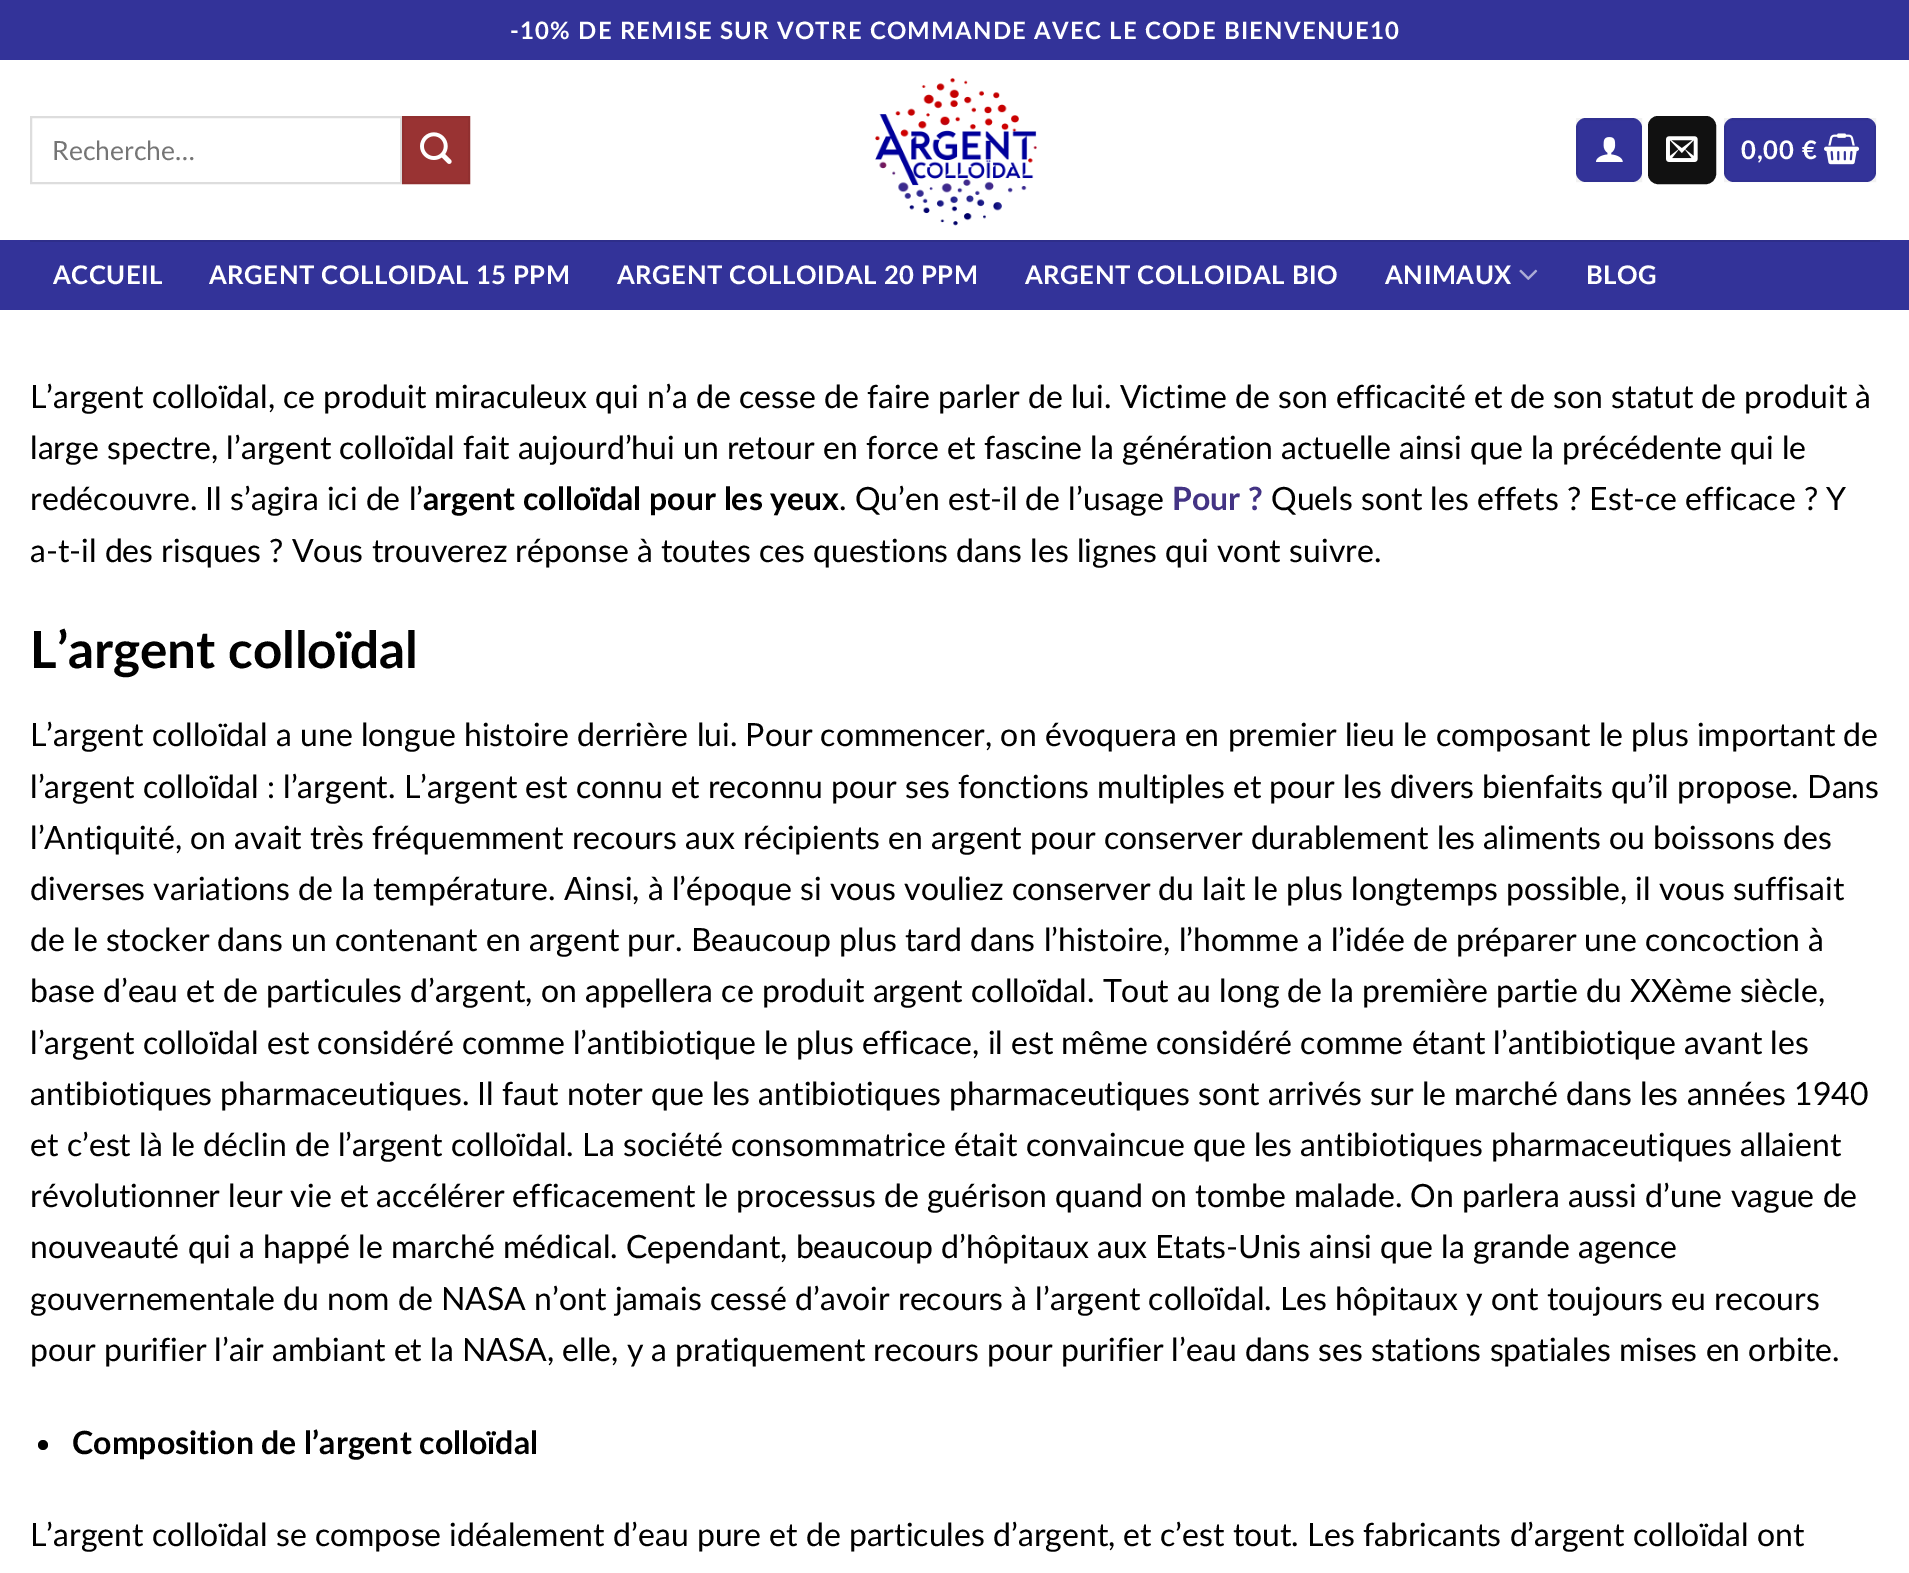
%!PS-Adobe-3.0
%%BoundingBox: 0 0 1909 1573
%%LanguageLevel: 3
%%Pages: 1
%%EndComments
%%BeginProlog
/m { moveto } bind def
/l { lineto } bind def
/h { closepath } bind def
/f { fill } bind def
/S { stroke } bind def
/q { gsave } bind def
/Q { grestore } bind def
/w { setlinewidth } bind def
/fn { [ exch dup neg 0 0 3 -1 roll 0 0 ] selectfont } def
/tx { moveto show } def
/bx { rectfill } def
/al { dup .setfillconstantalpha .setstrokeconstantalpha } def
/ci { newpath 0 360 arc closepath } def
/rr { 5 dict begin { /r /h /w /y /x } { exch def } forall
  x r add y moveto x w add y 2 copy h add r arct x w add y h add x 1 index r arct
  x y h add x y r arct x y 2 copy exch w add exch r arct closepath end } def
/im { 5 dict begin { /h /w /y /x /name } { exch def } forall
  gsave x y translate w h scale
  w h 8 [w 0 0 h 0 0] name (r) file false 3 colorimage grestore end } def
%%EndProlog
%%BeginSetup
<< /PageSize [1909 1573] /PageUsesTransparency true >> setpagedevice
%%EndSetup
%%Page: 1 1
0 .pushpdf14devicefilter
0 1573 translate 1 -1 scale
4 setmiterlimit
1 setgray
0 0 1909 1573 bx
0.2 0.2 0.6 setrgbcolor
0 0 1909 60 bx
/Lato-Bold 24 fn
1 setgray
510 39 m 1.2 0 (-10% DE REMISE SUR VOTRE COMMANDE AVEC LE CODE BIENVENUE10) ashow
0.867 setgray
2 w
31 117 370 66 rectstroke
/Lato-Regular 26.5 fn
0.459 setgray
(Recherche…) 52 160 tx
0.6 0.2 0.2 setrgbcolor
403 117 m 469 117 l 469 183 l 403 183 l h q f Q
0.569 0.188 0.188 setrgbcolor
S
(image0.raw) 420 132 32 32 im
(image1.raw) 875 78 162 148 im
0.2 0.2 0.6 setrgbcolor
1576 118 66 64 10 rr f
0.05 al
0 setgray
1577 119 64 62 rectstroke
1 al
(image2.raw) 1596 137 27 25 im
0.067 setgray
1649 117 66 66 9 rr q f Q
S
(image3.raw) 1666 136 32 26 im
0.2 0.2 0.6 setrgbcolor
1724 118 152 64 10 rr f
0.05 al
0 setgray
1725 119 150 62 rectstroke
/Lato-Bold 25.6 fn
1 al
1 setgray
1741 159 m 0.75 0 (0,00 €) ashow
(image4.raw) 1824 133 36 32 im
0.2 0.2 0.6 setrgbcolor
0 240 1909 70 bx
0.18 0.18 0.541 setrgbcolor
30 240 1850 2 bx
1 setgray
53 284 m 0.5 0 (ACCUEIL) ashow
209 284 m 0.5 0 (ARGENT COLLOIDAL 15 PPM) ashow
617 284 m 0.5 0 (ARGENT COLLOIDAL 20 PPM) ashow
1025 284 m 0.5 0 (ARGENT COLLOIDAL BIO) ashow
1385 284 m 0.5 0 (ANIMAUX) ashow
(image5.raw) 1519 269 19 11 im
1586 284 m 0.5 0 (BLOG) ashow
/Lato-Regular 32 fn
0 setgray
(L’argent colloïdal, ce produit miraculeux qui n’a de cesse de faire parler de lui. Victime de son efficacité et de son statut de produit à) 30 408 tx
(large spectre, l’argent colloïdal fait aujourd’hui un retour en force et fascine la génération actuelle ainsi que la précédente qui le) 30 459 tx
(redécouvre. Il s’agira ici de l’) 30 510 tx
/Lato-Bold 32 fn
(argent colloïdal pour les yeux) 423 510 tx
/Lato-Regular 32 fn
(. Qu’en est-il de l’usage) 839 510 tx
/Lato-Bold 32 fn
0.263 0.2 0.518 setrgbcolor
(Pour ?) 1172 510 tx
/Lato-Regular 32 fn
0 setgray
(Quels sont les effets ? Est-ce efficace ? Y) 1271 510 tx
(a-t-il des risques ? Vous trouverez réponse à toutes ces questions dans les lignes qui vont suivre.) 30 562 tx
/Lato-Bold 51.25 fn
(L’argent colloïdal) 30 668 tx
/Lato-Regular 32 fn
(L’argent colloïdal a une longue histoire derrière lui. Pour commencer, on évoquera en premier lieu le composant le plus important de) 30 746 tx
(l’argent colloïdal : l’argent. L’argent est connu et reconnu pour ses fonctions multiples et pour les divers bienfaits qu’il propose. Dans) 30 798 tx
(l’Antiquité, on avait très fréquemment recours aux récipients en argent pour conserver durablement les aliments ou boissons des) 30 849 tx
(diverses variations de la température. Ainsi, à l’époque si vous vouliez conserver du lait le plus longtemps possible, il vous suffisait) 30 900 tx
(de le stocker dans un contenant en argent pur. Beaucoup plus tard dans l’histoire, l’homme a l’idée de préparer une concoction à) 30 951 tx
(base d’eau et de particules d’argent, on appellera ce produit argent colloïdal. Tout au long de la première partie du XXème siècle,) 30 1002 tx
(l’argent colloïdal est considéré comme l’antibiotique le plus efficace, il est même considéré comme étant l’antibiotique avant les) 30 1054 tx
(antibiotiques pharmaceutiques. Il faut noter que les antibiotiques pharmaceutiques sont arrivés sur le marché dans les années 1940) 30 1105 tx
(et c’est là le déclin de l’argent colloïdal. La société consommatrice était convaincue que les antibiotiques pharmaceutiques allaient) 30 1156 tx
(révolutionner leur vie et accélérer efficacement le processus de guérison quand on tombe malade. On parlera aussi d’une vague de) 30 1207 tx
(nouveauté qui a happé le marché médical. Cependant, beaucoup d’hôpitaux aux Etats-Unis ainsi que la grande agence) 30 1258 tx
(gouvernementale du nom de NASA n’ont jamais cessé d’avoir recours à l’argent colloïdal. Les hôpitaux y ont toujours eu recours) 30 1310 tx
(pour purifier l’air ambiant et la NASA, elle, y a pratiquement recours pour purifier l’eau dans ses stations spatiales mises en orbite.) 30 1361 tx
43 1445 5 ci f
/Lato-Bold 32 fn
(Composition de l’argent colloïdal) 72 1454 tx
/Lato-Regular 32 fn
(L’argent colloïdal se compose idéalement d’eau pure et de particules d’argent, et c’est tout. Les fabricants d’argent colloïdal ont) 30 1546 tx
.poppdf14devicefilter showpage
%%EOF
